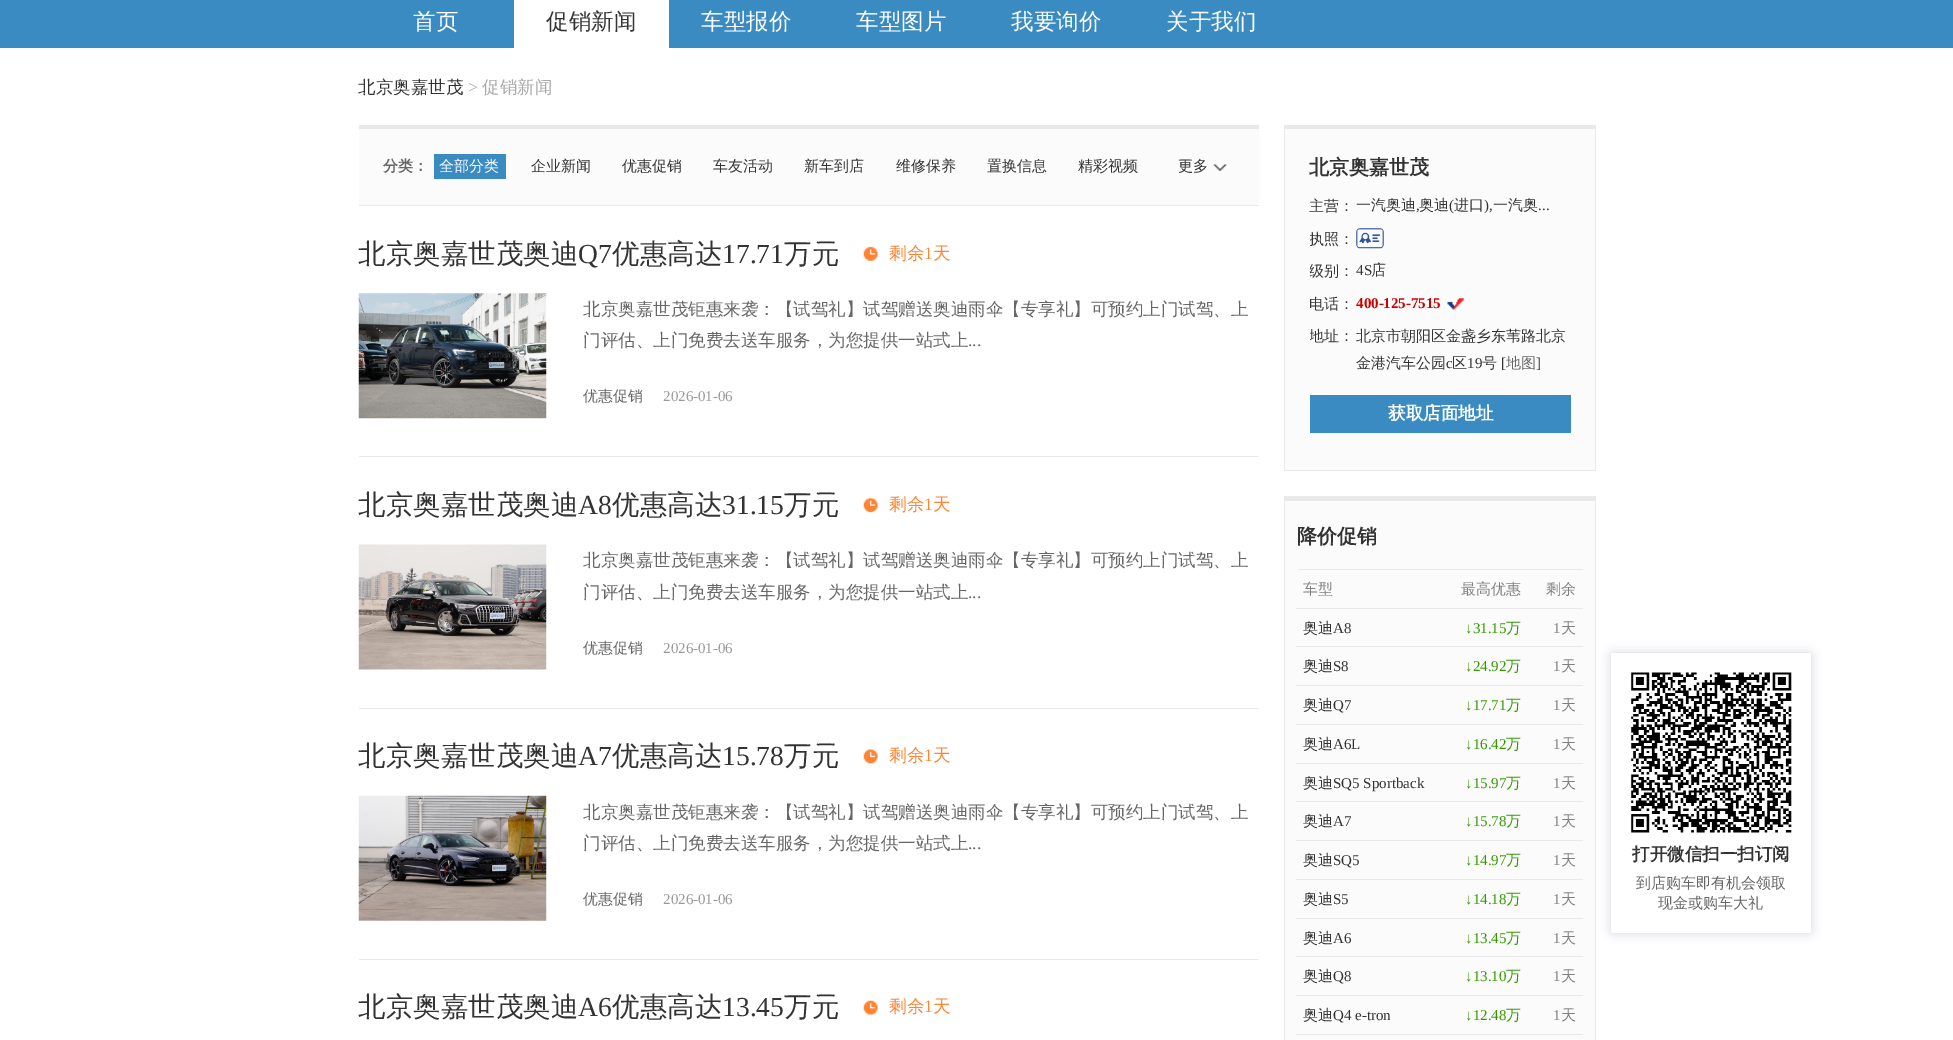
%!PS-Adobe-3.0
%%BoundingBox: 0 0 1953 1040
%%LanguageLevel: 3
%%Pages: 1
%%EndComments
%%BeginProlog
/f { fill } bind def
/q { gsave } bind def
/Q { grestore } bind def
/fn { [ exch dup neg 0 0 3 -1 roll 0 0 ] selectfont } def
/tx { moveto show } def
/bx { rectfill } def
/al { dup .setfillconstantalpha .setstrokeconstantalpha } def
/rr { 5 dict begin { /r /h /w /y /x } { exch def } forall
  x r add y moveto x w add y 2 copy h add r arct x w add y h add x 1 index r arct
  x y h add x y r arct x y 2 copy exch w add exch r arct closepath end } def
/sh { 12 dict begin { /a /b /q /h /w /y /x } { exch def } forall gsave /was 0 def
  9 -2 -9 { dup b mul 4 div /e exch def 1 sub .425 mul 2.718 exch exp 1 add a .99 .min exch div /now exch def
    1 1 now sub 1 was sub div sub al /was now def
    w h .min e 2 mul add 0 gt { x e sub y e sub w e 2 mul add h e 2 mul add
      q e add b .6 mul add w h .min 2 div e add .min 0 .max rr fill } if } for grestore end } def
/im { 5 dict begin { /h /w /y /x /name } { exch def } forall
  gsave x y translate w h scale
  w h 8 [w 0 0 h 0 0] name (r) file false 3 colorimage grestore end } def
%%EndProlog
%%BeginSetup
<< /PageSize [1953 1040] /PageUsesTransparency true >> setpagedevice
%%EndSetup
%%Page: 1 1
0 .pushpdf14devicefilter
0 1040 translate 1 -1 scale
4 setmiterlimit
1 setgray
0 0 1953 1040 bx
0.227 0.545 0.757 setrgbcolor
0 0 1953 48 bx
/WenQuanYiZenHei-Medium 22.5 fn
1 setgray
(首页) 413 29 tx
514 0 155 48 bx
0.2 setgray
(促销新闻) 546 29 tx
1 setgray
(车型报价) 701 29 tx
(车型图片) 856 29 tx
(我要询价) 1011 29 tx
(关于我们) 1166 29 tx
/WenQuanYiZenHei-Medium 17.5 fn
0.2 setgray
(北京奥嘉世茂) 358 93 tx
/LiberationSerif-Regular 17.5 fn
0.663 setgray
(>) 468 93 tx
/WenQuanYiZenHei-Medium 17.5 fn
(促销新闻) 482 93 tx
0.984 setgray
359 129 900 76 bx
0.914 setgray
359 125 900 4 bx
359 205 900 1 bx
/WenQuanYiZenHei-Bold 15 fn
0.4 setgray
(分类：) 383 171 tx
0.227 0.545 0.757 setrgbcolor
434 154 72 25 bx
/WenQuanYiZenHei-Medium 15 fn
1 setgray
(全部分类) 439 171 tx
0.2 setgray
(企业新闻) 531 171 tx
(优惠促销) 622 171 tx
(车友活动) 713 171 tx
(新车到店) 804 171 tx
(维修保养) 896 171 tx
(置换信息) 987 171 tx
(精彩视频) 1078 171 tx
(更多) 1178 171 tx
(image0.raw) 1213 164 14 7 im
0.914 setgray
359 456 900 1 bx
/WenQuanYiZenHei-Medium 27.5 fn
0.2 setgray
(北京奥嘉世茂奥迪) 358 263 tx
/LiberationSerif-Regular 27.5 fn
(Q7) 578 263 tx
/WenQuanYiZenHei-Medium 27.5 fn
(优惠高达) 612 263 tx
/LiberationSerif-Regular 27.5 fn
(17.71) 722 263 tx
/WenQuanYiZenHei-Medium 27.5 fn
(万元) 784 263 tx
(image1.raw) 863 246 15 15 im
/WenQuanYiZenHei-Medium 17.5 fn
1 0.514 0.192 setrgbcolor
(剩余) 889 259 tx
/LiberationSerif-Regular 17.5 fn
(1) 924 259 tx
/WenQuanYiZenHei-Medium 17.5 fn
(天) 933 259 tx
(image2.raw) 358 293 189 126 im
0.4 setgray
(北京奥嘉世茂钜惠来袭：【试驾礼】试驾赠送奥迪雨伞【专享礼】可预约上门试驾、上) 583 315 tx
(门评估、上门免费去送车服务，为您提供一站式上) 583 346 tx
/LiberationSerif-Regular 17.5 fn
(...) 968 346 tx
/WenQuanYiZenHei-Medium 15 fn
(优惠促销) 583 401 tx
/LiberationSerif-Regular 15 fn
0.6 setgray
(2026-01-06) 663 401 tx
0.914 setgray
359 708 900 1 bx
/WenQuanYiZenHei-Medium 27.5 fn
0.2 setgray
(北京奥嘉世茂奥迪) 358 514 tx
/LiberationSerif-Regular 27.5 fn
(A8) 578 514 tx
/WenQuanYiZenHei-Medium 27.5 fn
(优惠高达) 612 514 tx
/LiberationSerif-Regular 27.5 fn
(31.15) 722 514 tx
/WenQuanYiZenHei-Medium 27.5 fn
(万元) 784 514 tx
(image3.raw) 863 498 15 15 im
/WenQuanYiZenHei-Medium 17.5 fn
1 0.514 0.192 setrgbcolor
(剩余) 889 510 tx
/LiberationSerif-Regular 17.5 fn
(1) 924 510 tx
/WenQuanYiZenHei-Medium 17.5 fn
(天) 933 510 tx
(image4.raw) 358 544 189 126 im
0.4 setgray
(北京奥嘉世茂钜惠来袭：【试驾礼】试驾赠送奥迪雨伞【专享礼】可预约上门试驾、上) 583 566 tx
(门评估、上门免费去送车服务，为您提供一站式上) 583 598 tx
/LiberationSerif-Regular 17.5 fn
(...) 968 598 tx
/WenQuanYiZenHei-Medium 15 fn
(优惠促销) 583 653 tx
/LiberationSerif-Regular 15 fn
0.6 setgray
(2026-01-06) 663 653 tx
0.914 setgray
359 959 900 1 bx
/WenQuanYiZenHei-Medium 27.5 fn
0.2 setgray
(北京奥嘉世茂奥迪) 358 765 tx
/LiberationSerif-Regular 27.5 fn
(A7) 578 765 tx
/WenQuanYiZenHei-Medium 27.5 fn
(优惠高达) 612 765 tx
/LiberationSerif-Regular 27.5 fn
(15.78) 722 765 tx
/WenQuanYiZenHei-Medium 27.5 fn
(万元) 784 765 tx
(image5.raw) 863 749 15 15 im
/WenQuanYiZenHei-Medium 17.5 fn
1 0.514 0.192 setrgbcolor
(剩余) 889 761 tx
/LiberationSerif-Regular 17.5 fn
(1) 924 761 tx
/WenQuanYiZenHei-Medium 17.5 fn
(天) 933 761 tx
(image6.raw) 358 795 189 126 im
0.4 setgray
(北京奥嘉世茂钜惠来袭：【试驾礼】试驾赠送奥迪雨伞【专享礼】可预约上门试驾、上) 583 818 tx
(门评估、上门免费去送车服务，为您提供一站式上) 583 849 tx
/LiberationSerif-Regular 17.5 fn
(...) 968 849 tx
/WenQuanYiZenHei-Medium 15 fn
(优惠促销) 583 904 tx
/LiberationSerif-Regular 15 fn
0.6 setgray
(2026-01-06) 663 904 tx
/WenQuanYiZenHei-Medium 27.5 fn
0.2 setgray
(北京奥嘉世茂奥迪) 358 1016 tx
/LiberationSerif-Regular 27.5 fn
(A6) 578 1016 tx
/WenQuanYiZenHei-Medium 27.5 fn
(优惠高达) 612 1016 tx
/LiberationSerif-Regular 27.5 fn
(13.45) 722 1016 tx
/WenQuanYiZenHei-Medium 27.5 fn
(万元) 784 1016 tx
(image7.raw) 863 1000 15 15 im
/WenQuanYiZenHei-Medium 17.5 fn
1 0.514 0.192 setrgbcolor
(剩余) 889 1012 tx
/LiberationSerif-Regular 17.5 fn
(1) 924 1012 tx
/WenQuanYiZenHei-Medium 17.5 fn
(天) 933 1012 tx
0.984 setgray
1285 129 310 341 bx
0.914 setgray
1284 125 312 4 bx
1595 125 1 346 bx
1284 470 312 1 bx
1284 125 1 346 bx
/WenQuanYiZenHei-Bold 20 fn
0.2 setgray
(北京奥嘉世茂) 1309 174 tx
/WenQuanYiZenHei-Medium 15 fn
(主营：) 1309 211 tx
(一汽奥迪) 1356 210 tx
/LiberationSerif-Regular 15 fn
(,) 1416 210 tx
/WenQuanYiZenHei-Medium 15 fn
(奥迪) 1419 210 tx
/LiberationSerif-Regular 15 fn
(\() 1449 210 tx
/WenQuanYiZenHei-Medium 15 fn
(进口) 1454 210 tx
/LiberationSerif-Regular 15 fn
(\),) 1484 210 tx
/WenQuanYiZenHei-Medium 15 fn
(一汽奥) 1493 210 tx
/LiberationSerif-Regular 15 fn
(...) 1538 210 tx
q
1310 226 48 27 rectclip
/WenQuanYiZenHei-Medium 15 fn
(执照：) 1309 244 tx
Q
(image8.raw) 1356 228 28 21 im
q
1310 259 48 26 rectclip
/WenQuanYiZenHei-Medium 15 fn
(级别：) 1309 276 tx
Q
(4S) 1356 275 tx
/WenQuanYiZenHei-Medium 15 fn
(店) 1371 275 tx
(电话：) 1309 309 tx
/LiberationSerif-Bold 15 fn
0.8 0 0 setrgbcolor
(400-125-7515) 1356 308 tx
(image9.raw) 1447 298 17 12 im
q
1310 324 48 26 rectclip
/WenQuanYiZenHei-Medium 15 fn
0.2 setgray
(地址：) 1309 341 tx
Q
/WenQuanYiZenHei-Medium 15 fn
0.2 setgray
(北京市朝阳区金盏乡东苇路北京) 1356 341 tx
(金港汽车公园) 1356 368 tx
/LiberationSerif-Regular 15 fn
(c) 1446 368 tx
/WenQuanYiZenHei-Medium 15 fn
(区) 1452 368 tx
/LiberationSerif-Regular 15 fn
(19) 1467 368 tx
/WenQuanYiZenHei-Medium 15 fn
(号) 1482 368 tx
/LiberationSerif-Regular 15 fn
([) 1501 368 tx
/WenQuanYiZenHei-Medium 15 fn
0.4 setgray
(地图) 1506 368 tx
/LiberationSerif-Regular 15 fn
0.2 setgray
(]) 1536 368 tx
0.227 0.545 0.757 setrgbcolor
1310 395 261 38 bx
/WenQuanYiZenHei-Bold 17.5 fn
1 setgray
(获取店面地址) 1388 419 tx
0.984 setgray
1285 501 310 539 bx
0.914 setgray
1284 496 312 5 bx
1595 496 1 544 bx
1284 496 1 544 bx
/WenQuanYiZenHei-Bold 20 fn
0.2 setgray
(降价促销) 1297 543 tx
0.914 setgray
1298 569 285 1 bx
/WenQuanYiZenHei-Medium 15 fn
0.498 setgray
(车型) 1303 594 tx
(最高优惠) 1461 594 tx
0.914 setgray
1296 608 287 1 bx
0.498 setgray
(剩余) 1546 594 tx
0.2 setgray
(奥迪) 1303 633 tx
/LiberationSerif-Regular 15 fn
(A8) 1333 633 tx
0.2 0.6 0 setrgbcolor
(↓31.15) 1465 633 tx
/WenQuanYiZenHei-Medium 15 fn
(万) 1506 633 tx
0.914 setgray
1296 646 287 1 bx
/LiberationSerif-Regular 15 fn
0.498 setgray
(1) 1553 633 tx
/WenQuanYiZenHei-Medium 15 fn
(天) 1561 633 tx
0.2 setgray
(奥迪) 1303 671 tx
/LiberationSerif-Regular 15 fn
(S8) 1333 671 tx
0.2 0.6 0 setrgbcolor
(↓24.92) 1465 671 tx
/WenQuanYiZenHei-Medium 15 fn
(万) 1506 671 tx
0.914 setgray
1296 685 287 1 bx
/LiberationSerif-Regular 15 fn
0.498 setgray
(1) 1553 671 tx
/WenQuanYiZenHei-Medium 15 fn
(天) 1561 671 tx
0.2 setgray
(奥迪) 1303 710 tx
/LiberationSerif-Regular 15 fn
(Q7) 1333 710 tx
0.2 0.6 0 setrgbcolor
(↓17.71) 1465 710 tx
/WenQuanYiZenHei-Medium 15 fn
(万) 1506 710 tx
0.914 setgray
1296 724 287 1 bx
/LiberationSerif-Regular 15 fn
0.498 setgray
(1) 1553 710 tx
/WenQuanYiZenHei-Medium 15 fn
(天) 1561 710 tx
0.2 setgray
(奥迪) 1303 749 tx
/LiberationSerif-Regular 15 fn
(A6L) 1333 749 tx
0.2 0.6 0 setrgbcolor
(↓16.42) 1465 749 tx
/WenQuanYiZenHei-Medium 15 fn
(万) 1506 749 tx
0.914 setgray
1296 763 287 1 bx
/LiberationSerif-Regular 15 fn
0.498 setgray
(1) 1553 749 tx
/WenQuanYiZenHei-Medium 15 fn
(天) 1561 749 tx
0.2 setgray
(奥迪) 1303 788 tx
/LiberationSerif-Regular 15 fn
(SQ5 Sportback) 1333 788 tx
0.2 0.6 0 setrgbcolor
(↓15.97) 1465 788 tx
/WenQuanYiZenHei-Medium 15 fn
(万) 1506 788 tx
0.914 setgray
1296 801 287 1 bx
/LiberationSerif-Regular 15 fn
0.498 setgray
(1) 1553 788 tx
/WenQuanYiZenHei-Medium 15 fn
(天) 1561 788 tx
0.2 setgray
(奥迪) 1303 826 tx
/LiberationSerif-Regular 15 fn
(A7) 1333 826 tx
0.2 0.6 0 setrgbcolor
(↓15.78) 1465 826 tx
/WenQuanYiZenHei-Medium 15 fn
(万) 1506 826 tx
0.914 setgray
1296 840 287 1 bx
/LiberationSerif-Regular 15 fn
0.498 setgray
(1) 1553 826 tx
/WenQuanYiZenHei-Medium 15 fn
(天) 1561 826 tx
0.2 setgray
(奥迪) 1303 865 tx
/LiberationSerif-Regular 15 fn
(SQ5) 1333 865 tx
0.2 0.6 0 setrgbcolor
(↓14.97) 1465 865 tx
/WenQuanYiZenHei-Medium 15 fn
(万) 1506 865 tx
0.914 setgray
1296 879 287 1 bx
/LiberationSerif-Regular 15 fn
0.498 setgray
(1) 1553 865 tx
/WenQuanYiZenHei-Medium 15 fn
(天) 1561 865 tx
0.2 setgray
(奥迪) 1303 904 tx
/LiberationSerif-Regular 15 fn
(S5) 1333 904 tx
0.2 0.6 0 setrgbcolor
(↓14.18) 1465 904 tx
/WenQuanYiZenHei-Medium 15 fn
(万) 1506 904 tx
0.914 setgray
1296 918 287 1 bx
/LiberationSerif-Regular 15 fn
0.498 setgray
(1) 1553 904 tx
/WenQuanYiZenHei-Medium 15 fn
(天) 1561 904 tx
0.2 setgray
(奥迪) 1303 943 tx
/LiberationSerif-Regular 15 fn
(A6) 1333 943 tx
0.2 0.6 0 setrgbcolor
(↓13.45) 1465 943 tx
/WenQuanYiZenHei-Medium 15 fn
(万) 1506 943 tx
0.914 setgray
1296 956 287 1 bx
/LiberationSerif-Regular 15 fn
0.498 setgray
(1) 1553 943 tx
/WenQuanYiZenHei-Medium 15 fn
(天) 1561 943 tx
0.2 setgray
(奥迪) 1303 981 tx
/LiberationSerif-Regular 15 fn
(Q8) 1333 981 tx
0.2 0.6 0 setrgbcolor
(↓13.10) 1465 981 tx
/WenQuanYiZenHei-Medium 15 fn
(万) 1506 981 tx
0.914 setgray
1296 995 287 1 bx
/LiberationSerif-Regular 15 fn
0.498 setgray
(1) 1553 981 tx
/WenQuanYiZenHei-Medium 15 fn
(天) 1561 981 tx
0.2 setgray
(奥迪) 1303 1020 tx
/LiberationSerif-Regular 15 fn
(Q4 e-tron) 1333 1020 tx
0.2 0.6 0 setrgbcolor
(↓12.48) 1465 1020 tx
/WenQuanYiZenHei-Medium 15 fn
(万) 1506 1020 tx
0.914 setgray
1296 1034 287 1 bx
/LiberationSerif-Regular 15 fn
0.498 setgray
(1) 1553 1020 tx
/WenQuanYiZenHei-Medium 15 fn
(天) 1561 1020 tx
0.184 0.208 0.349 setrgbcolor
1611 653 200 280 2.5 5 0.2 sh
1 setgray
1611 653 200 280 2.5 rr f
(image10.raw) 1630 672 162 161 im
/WenQuanYiZenHei-Bold 17.5 fn
0.2 setgray
(打开微信扫一扫订阅) 1632 860 tx
/WenQuanYiZenHei-Medium 15 fn
0.4 setgray
(到店购车即有机会领取) 1636 888 tx
(现金或购车大礼) 1658 908 tx
.poppdf14devicefilter showpage
%%EOF
